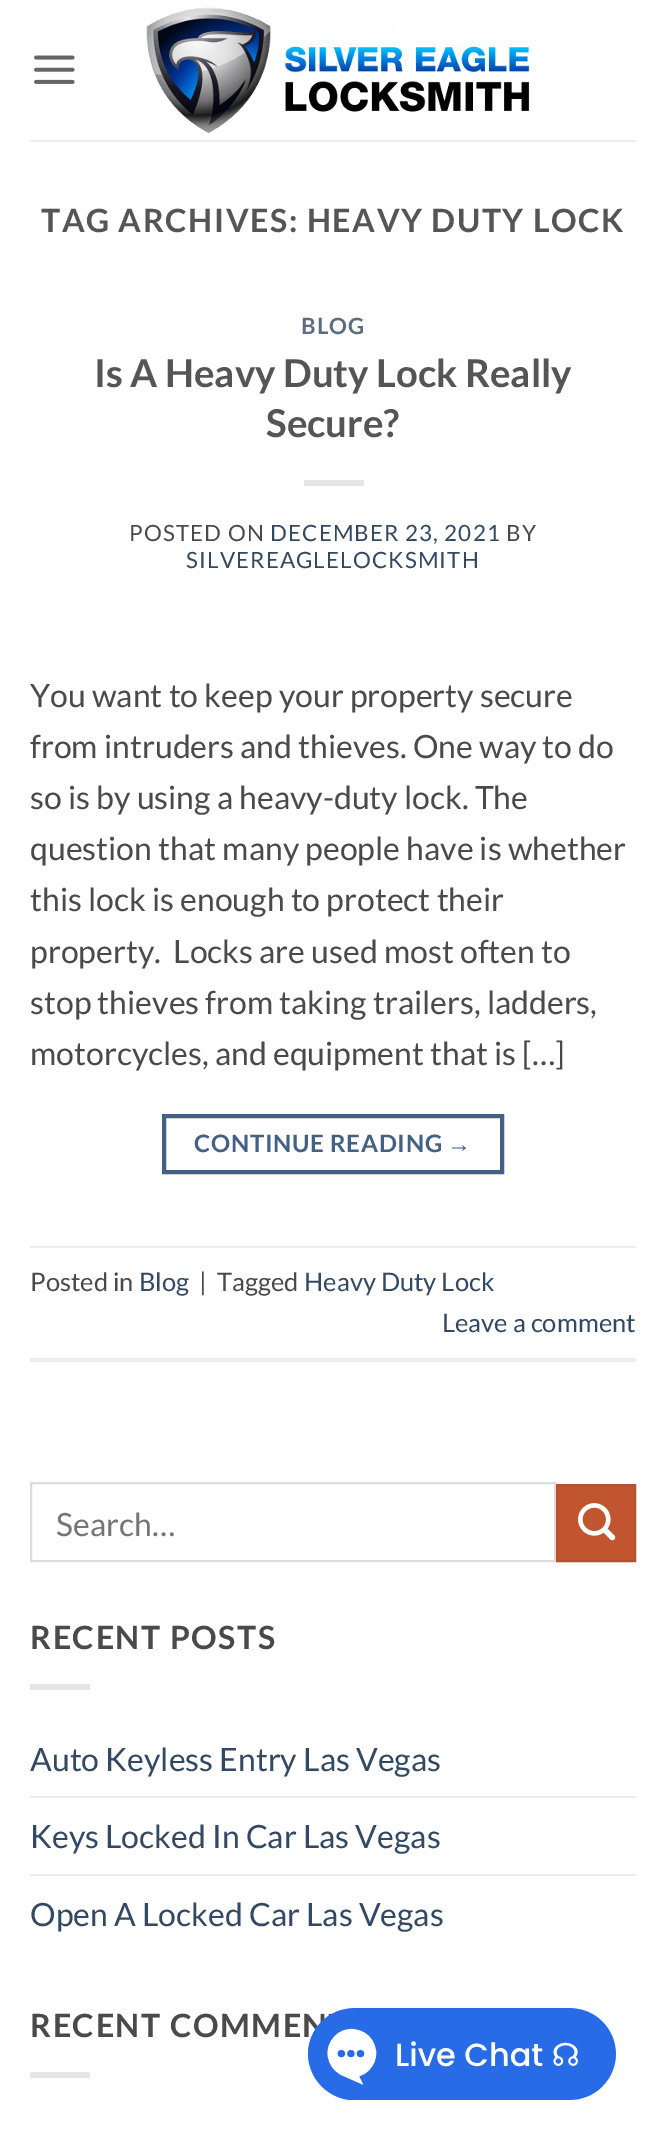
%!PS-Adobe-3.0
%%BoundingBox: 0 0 666 2150
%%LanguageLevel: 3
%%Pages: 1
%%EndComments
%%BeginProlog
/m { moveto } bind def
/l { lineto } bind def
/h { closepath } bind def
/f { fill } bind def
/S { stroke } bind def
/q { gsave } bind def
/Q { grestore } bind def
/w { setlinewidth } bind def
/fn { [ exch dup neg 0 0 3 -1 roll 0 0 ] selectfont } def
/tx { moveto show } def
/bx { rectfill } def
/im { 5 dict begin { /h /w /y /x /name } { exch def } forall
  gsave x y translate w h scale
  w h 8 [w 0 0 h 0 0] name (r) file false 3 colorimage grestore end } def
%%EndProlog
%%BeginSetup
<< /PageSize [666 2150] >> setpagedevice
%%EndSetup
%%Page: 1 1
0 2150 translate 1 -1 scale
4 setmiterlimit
1 setgray
0 0 666 2150 bx
(image0.raw) 34 55 41 29 im
(image1.raw) 146 7 384 127 im
0.929 setgray
30 140 606 2 bx
/Lato-Bold 32 fn
0.333 setgray
41 232 m 1.6 0 (TAG ARCHIVES: HEAVY DUTY LOCK) ashow
/Lato-Bold 22.4 fn
0.361 0.427 0.506 setrgbcolor
301 334 m 1.1 0 (BLOG) ashow
/Lato-Bold 38.4 fn
0.333 setgray
(Is A Heavy Duty Lock Really) 94 387 tx
(Secure?) 266 437 tx
0.902 setgray
304 480 60 6 bx
/Lato-Regular 22.4 fn
0.29 setgray
129 541 m 1.1 0 (POSTED ON) ashow
0.2 0.282 0.384 setrgbcolor
270 541 m 1.1 0 (DECEMBER 23, 2021) ashow
0.29 setgray
506 541 m 1.1 0 (BY) ashow
0.2 0.282 0.384 setrgbcolor
186 568 m 1.1 0 (SILVEREAGLELOCKSMITH) ashow
/Lato-Regular 32 fn
0.29 setgray
(You want to keep your property secure) 30 707 tx
(from intruders and thieves. One way to do) 30 758 tx
(so is by using a heavy-duty lock. The) 30 809 tx
(question that many people have is whether) 30 860 tx
(this lock is enough to protect their) 30 911 tx
(property.  Locks are used most often to) 30 963 tx
(stop thieves from taking trailers, ladders,) 30 1014 tx
(motorcycles, and equipment that is […]) 30 1065 tx
0.267 0.376 0.518 setrgbcolor
4 w
164 1116 338 56 rectstroke
/Lato-Bold 24 fn
194 1152 m 0.75 0 (CONTINUE READING) ashow
/LiberationSans-Bold 24 fn
447 1152 m 0.75 0 (→) ashow
0.925 setgray
30 1246 606 2 bx
30 1358 606 4 bx
/Lato-Regular 25.5 fn
0.29 setgray
(Posted in) 30 1291 tx
0.2 0.282 0.384 setrgbcolor
(Blog) 139 1291 tx
0.29 setgray
(|) 199 1291 tx
(Tagged) 217 1291 tx
0.2 0.282 0.384 setrgbcolor
(Heavy Duty Lock) 304 1291 tx
(Leave a comment) 442 1332 tx
0.867 setgray
2 w
31 1483 524 78 rectstroke
/Lato-Regular 32 fn
0.459 setgray
(Search…) 56 1536 tx
0.753 0.333 0.188 setrgbcolor
557 1485 m 635 1485 l 635 1561 l 557 1561 l h q f Q
0.714 0.318 0.18 setrgbcolor
S
(image2.raw) 578 1503 38 38 im
/Lato-Bold 32 fn
0.29 setgray
30 1649 m 1.6 0 (RECENT POSTS) ashow
0.902 setgray
30 1684 60 6 bx
/Lato-Regular 32 fn
0.2 0.282 0.384 setrgbcolor
(Auto Keyless Entry Las Vegas) 30 1771 tx
0.925 setgray
30 1796 606 2 bx
0.2 0.282 0.384 setrgbcolor
(Keys Locked In Car Las Vegas) 30 1848 tx
0.925 setgray
30 1874 606 2 bx
0.2 0.282 0.384 setrgbcolor
(Open A Locked Car Las Vegas) 30 1926 tx
/Lato-Bold 32 fn
0.29 setgray
30 2037 m 1.6 0 (RECENT COMMEN) ashow
0.902 setgray
30 2072 60 6 bx
(image3.raw) 308 2008 308 92 im
showpage
%%EOF
